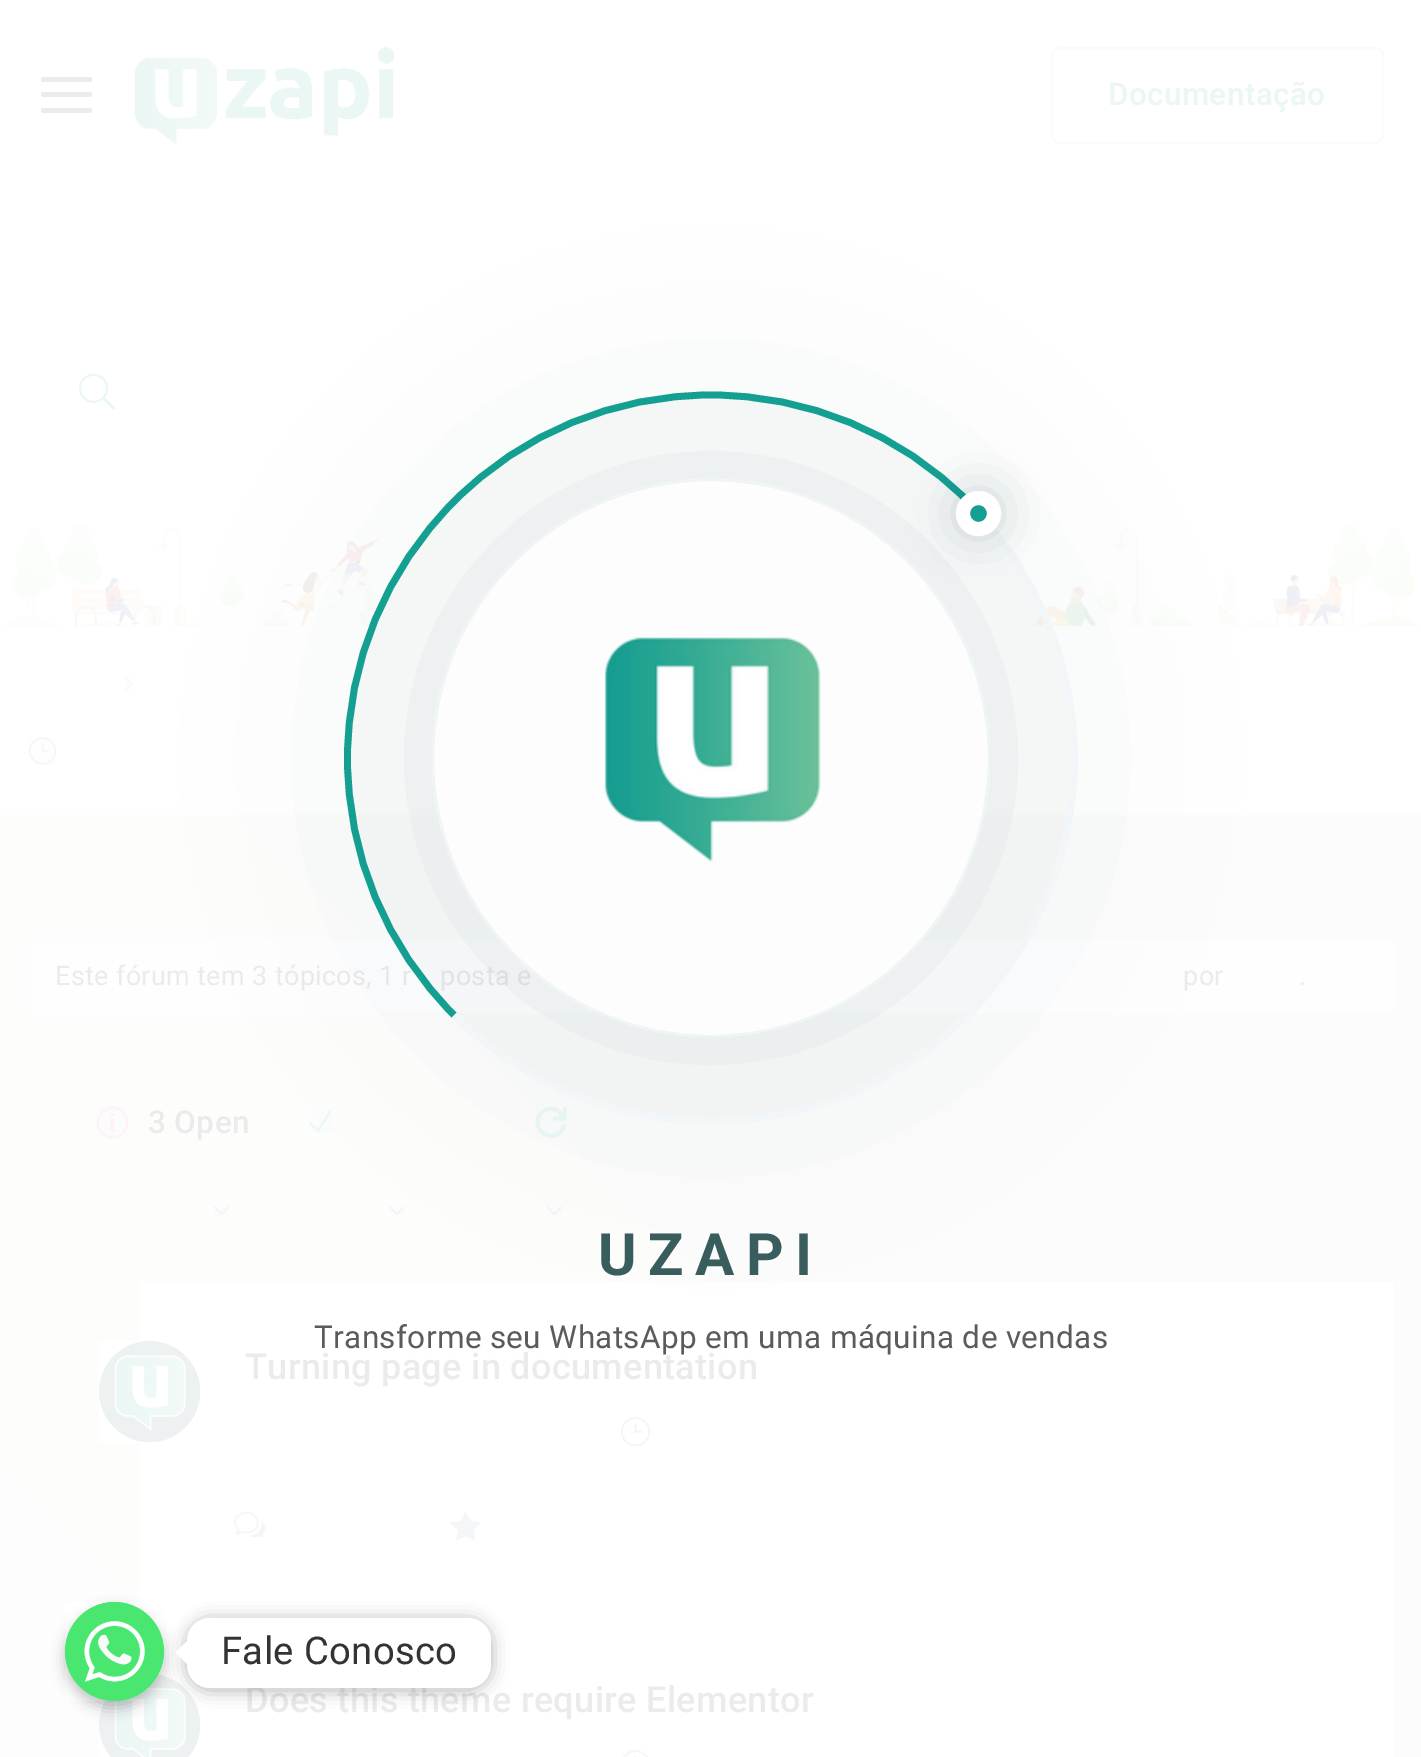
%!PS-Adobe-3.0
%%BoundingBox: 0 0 1421 1757
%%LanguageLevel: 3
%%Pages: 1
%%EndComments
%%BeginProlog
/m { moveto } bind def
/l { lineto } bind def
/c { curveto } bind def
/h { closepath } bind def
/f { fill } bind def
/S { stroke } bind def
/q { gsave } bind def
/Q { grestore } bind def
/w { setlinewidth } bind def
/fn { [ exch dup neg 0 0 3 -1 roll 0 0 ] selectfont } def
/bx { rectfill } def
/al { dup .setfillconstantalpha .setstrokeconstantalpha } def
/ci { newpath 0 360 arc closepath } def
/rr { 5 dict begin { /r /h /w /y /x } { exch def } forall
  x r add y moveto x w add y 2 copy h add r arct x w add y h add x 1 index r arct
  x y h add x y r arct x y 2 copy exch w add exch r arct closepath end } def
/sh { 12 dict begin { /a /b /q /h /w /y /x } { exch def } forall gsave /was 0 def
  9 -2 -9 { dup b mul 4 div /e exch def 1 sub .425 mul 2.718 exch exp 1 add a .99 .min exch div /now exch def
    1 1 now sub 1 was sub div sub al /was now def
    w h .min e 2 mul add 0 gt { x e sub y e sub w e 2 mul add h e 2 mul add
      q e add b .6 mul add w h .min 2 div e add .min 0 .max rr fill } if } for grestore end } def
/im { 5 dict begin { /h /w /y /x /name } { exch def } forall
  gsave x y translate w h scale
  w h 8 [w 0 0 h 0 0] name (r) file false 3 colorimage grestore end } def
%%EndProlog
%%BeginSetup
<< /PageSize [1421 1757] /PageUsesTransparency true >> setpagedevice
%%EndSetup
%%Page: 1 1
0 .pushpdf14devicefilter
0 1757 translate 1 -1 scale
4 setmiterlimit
1 setgray
0 0 1421 1757 bx
q 0 815 m 1421 815 l 1421 1757 l 0 1757 l h clip newpath
<< /ShadingType 2 /ColorSpace /DeviceRGB /Coords [-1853 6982 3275 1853] /Extend [true true] /Function << /FunctionType 2 /Domain [0 1] /C0 [1 1 0.996] /C1 [0.988 0.988 0.988] /N 1 >> >> shfill Q
0.922 setgray
41 77 51 5 2.5 rr f
41 92 51 5 2.5 rr f
41 108 51 5 2.5 rr f
(image0.raw) 134 47 261 99 im
0.984 setgray
2 w
1052 48 331 95 8 rr S
/Roboto-SemiBold 31.5 fn
0.922 0.969 0.961 setrgbcolor
1108 105 m 0.35 0 (Documentação) ashow
(image1.raw) 2 524 1418 102 im
(image2.raw) 78 373 37 37 im
(image3.raw) 125 676 8 15 im
(image4.raw) 29 737 28 28 im
0.996 0.996 1 setrgbcolor
28 939 1366 75 6 rr q f Q
0.984 0.992 0.996 setrgbcolor
S
/Roboto-Regular 27 fn
0.922 setgray
55 985 m 0.35 0 (Este fórum tem 3 tópicos, 1 r) ashow
440 985 m 0.35 0 (posta e) ashow
1183 985 m 0.35 0 (por) ashow
1299 985 m 0.35 0 (.) ashow
(image5.raw) 96 1106 33 33 im
/Roboto-Medium 31.5 fn
148 1133 m 0.35 0 (3 Open) ashow
(image6.raw) 309 1110 23 23 im
(image7.raw) 535 1106 32 32 im
(image8.raw) 214 1206 15 9 im
(image9.raw) 389 1206 16 9 im
(image10.raw) 547 1206 15 9 im
1 setgray
140 1282 1253 475 bx
(image11.raw) 99 1341 102 102 im
/Roboto-Medium 36 fn
0.922 setgray
245 1379 m 0.35 0 (Turning page in documentation) ashow
(image12.raw) 620 1417 31 30 im
(image13.raw) 234 1511 32 27 im
0.961 0.965 0.969 setrgbcolor
470.5 1521 m 481 1522.5 l 473.5 1530 l 475.5 1541 l 465.5 1536 l 456 1541 l 458 1530 l 450 1522.5 l 461 1521 l 465.5 1511.5 l h f
(image14.raw) 99 1674 102 83 im
0.922 setgray
245 1712 m 0.35 0 (Does this theme require Elementor) ashow
(image15.raw) 623 1750 25 7 im
q
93 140 m 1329 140 l 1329 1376 l 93 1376 l h 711 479 m 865 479 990 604 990 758 c 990 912 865 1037 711 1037 c 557 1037 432 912 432 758 c 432 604 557 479 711 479 c h eoclip newpath
0.016 0.18 0.22 setrgbcolor
432 479 558 558 279 112.5 0.13 sh
Q
0.92 al
0.992 setgray
711 758 279 ci f
0.933 0.953 0.957 setrgbcolor
711 758 278 ci S
1 al
(image16.raw) 604 637 217 225 im
0.92 al
0.945 0.965 0.973 setrgbcolor
6.8 w
968 501.5 m 1036 569.5 1074.5 662 1074.5 758 c 1074.5 854.5 1036 947 968 1015 c 900 1083.5 807.5 1121.5 711 1121.5 c 614.5 1121.5 522 1083.5 454 1015 c S
0 0.592 0.533 setrgbcolor
454 1015 m 386 947 347.5 854.5 347.5 758.5 c 347.5 662 386 569.5 454 501.5 c 522 433 614.5 395 711 395 c 807.5 395 900 433 968 501.5 c S
1 al
0.016 0.18 0.22 setrgbcolor
956 491 45 45 22.5 22.5 0.18 sh
0.082 0.624 0.569 setrgbcolor
978.5 513.5 15.5 ci q f Q
1 setgray
14 w
S
/Roboto-Bold 58.5 fn
0.224 0.365 0.361 setrgbcolor
598 1275 m 11.5 0 (UZAPI) ashow
/Roboto-Regular 31.5 fn
0.357 setgray
314 1348 m 0.35 0 (Transforme seu WhatsApp em uma máquina de vendas) ashow
0 setgray
65 1609 99 99 49.5 7 0.25 sh
(image17.raw) 65 1602 99 99 im
q
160 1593 m 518 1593 l 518 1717 l 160 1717 l h 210 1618 m 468 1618 l 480.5 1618 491 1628.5 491 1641 c 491 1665 l 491 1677.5 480.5 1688 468 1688 c 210 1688 l 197.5 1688 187 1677.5 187 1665 c 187 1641 l 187 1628.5 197.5 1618 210 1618 c h eoclip newpath
187 1620 304 70 23 8.5 0.15 sh
187 1620 304 70 23 8.5 0.15 sh
Q
1 setgray
187 1618 304 70 23 rr f
187 1641.5 m 187 1664 l 175.5 1652.5 l h f
/Roboto-Regular 38.25 fn
0.2 setgray
221 1664 m 0.35 0 (Fale Conosco) ashow
.poppdf14devicefilter showpage
%%EOF
